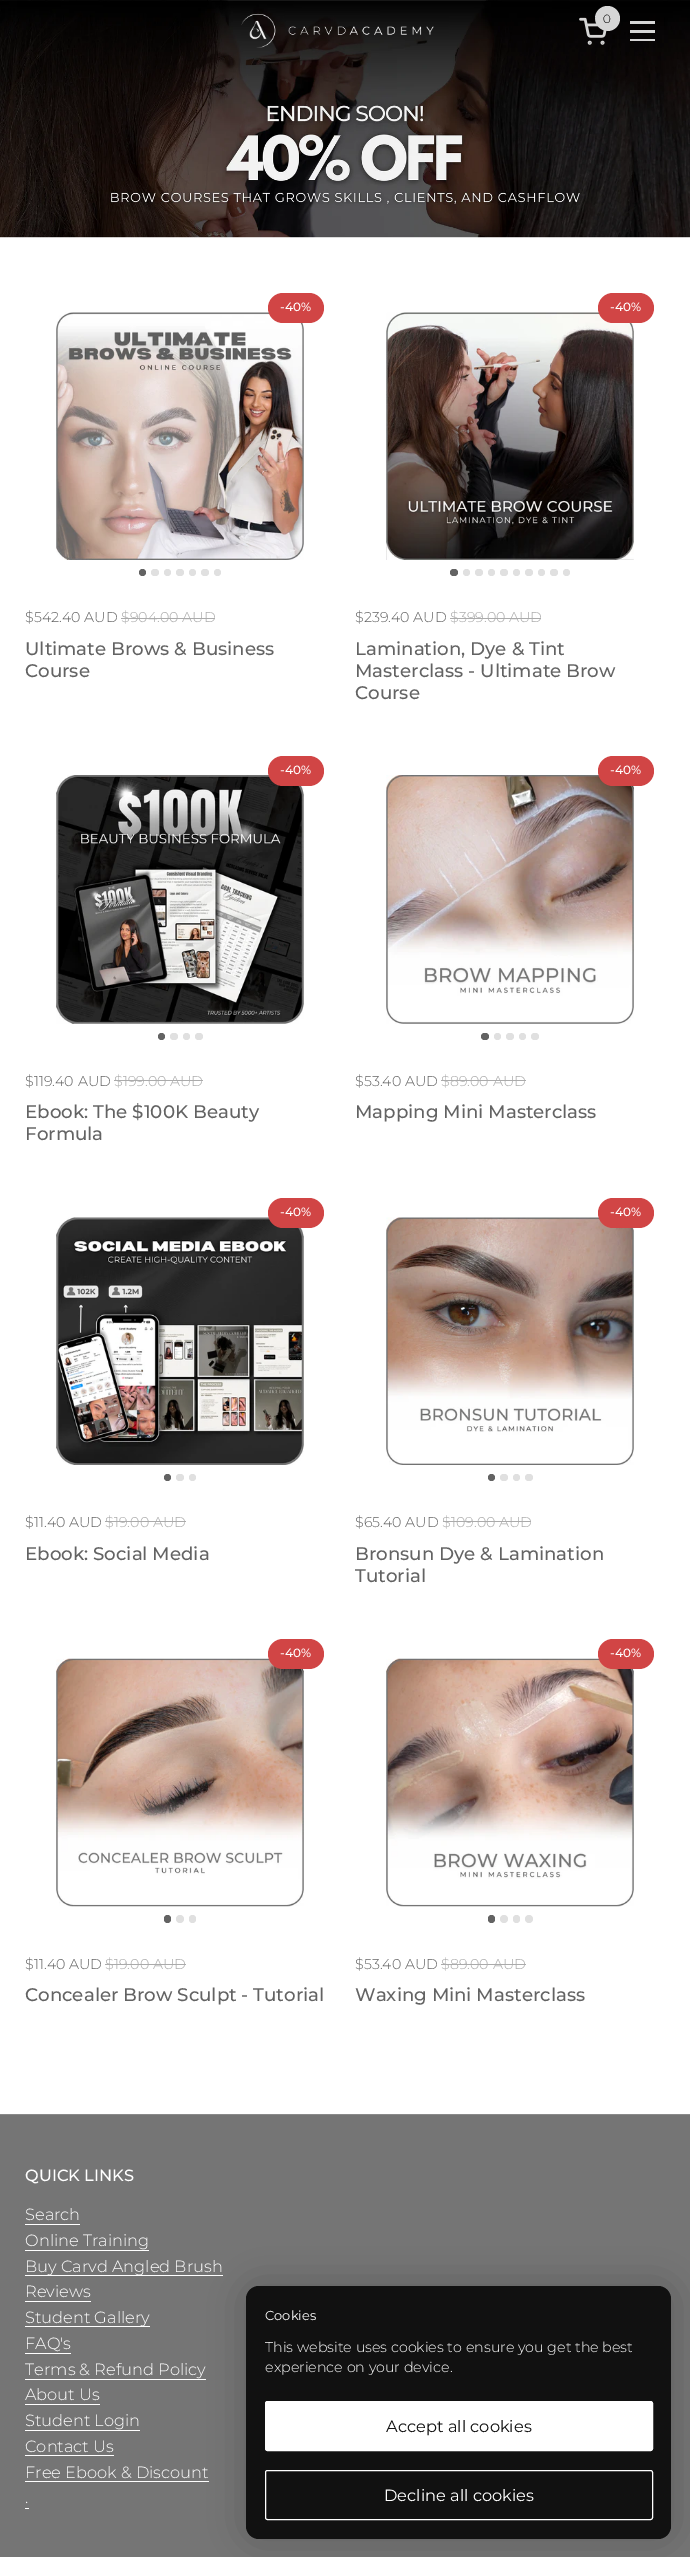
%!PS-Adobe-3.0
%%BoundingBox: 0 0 690 2557
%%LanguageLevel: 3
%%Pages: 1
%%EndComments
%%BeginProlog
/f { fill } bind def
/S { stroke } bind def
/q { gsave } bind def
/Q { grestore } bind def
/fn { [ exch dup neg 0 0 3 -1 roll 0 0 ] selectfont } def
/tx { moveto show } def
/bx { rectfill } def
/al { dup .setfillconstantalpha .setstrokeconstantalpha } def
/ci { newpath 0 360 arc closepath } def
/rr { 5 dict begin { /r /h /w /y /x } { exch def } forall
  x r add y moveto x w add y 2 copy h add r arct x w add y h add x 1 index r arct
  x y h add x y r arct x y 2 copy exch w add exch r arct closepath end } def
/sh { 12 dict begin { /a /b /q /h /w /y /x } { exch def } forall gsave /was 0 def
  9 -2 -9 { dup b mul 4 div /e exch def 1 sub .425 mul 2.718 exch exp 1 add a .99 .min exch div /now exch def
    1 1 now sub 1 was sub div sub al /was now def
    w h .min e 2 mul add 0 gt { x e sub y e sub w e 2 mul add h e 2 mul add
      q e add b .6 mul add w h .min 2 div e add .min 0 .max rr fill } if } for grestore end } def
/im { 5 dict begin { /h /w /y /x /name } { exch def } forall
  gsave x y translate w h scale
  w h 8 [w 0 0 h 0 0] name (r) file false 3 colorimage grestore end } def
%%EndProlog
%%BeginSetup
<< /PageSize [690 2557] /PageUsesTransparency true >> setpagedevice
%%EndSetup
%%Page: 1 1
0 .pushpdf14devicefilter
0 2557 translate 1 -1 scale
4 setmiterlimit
1 setgray
0 0 690 2557 bx
(image2.raw) 0 0 690 238 im
(image0.raw) 241 13 193 35 im
0.839 setgray
607.5 18.5 12.5 ci f
/Montserrat-Light 12 fn
0 setgray
(0) 603 23 tx
(image1.raw) 579 17 28 28 im
0.839 setgray
630 21 25 3 bx
630 30 25 3 bx
630 39 25 2 bx
(image3.raw) 56 312 248 248 im
0.82 0.271 0.271 setrgbcolor
268 293 56 30 15 rr f
/Montserrat-Medium 12 fn
1 setgray
(-40%) 280 311 tx
0.388 setgray
142.5 572.5 3.5 ci f
0.878 setgray
151 569 8 7 3.5 rr f
167.5 572.5 3.5 ci f
176 569 8 7 3.5 rr f
192.5 572.5 3.5 ci f
201 569 8 7 3.5 rr f
217.5 572.5 3.5 ci f
/Montserrat-Light 14.25 fn
0.388 setgray
($542.40 AUD) 25 622 tx
0.671 setgray
($904.00 AUD) 121 622 tx
121 618 94 1 bx
/Montserrat-Medium 18.25 fn
0.388 setgray
(Ultimate Brows & Business) 25 655 tx
(Course) 25 677 tx
(image4.raw) 386 312 248 248 im
0.82 0.271 0.271 setrgbcolor
598 293 56 30 15 rr f
/Montserrat-Medium 12 fn
1 setgray
(-40%) 610 311 tx
0.388 setgray
450 569 8 7 3.5 rr f
0.878 setgray
466.5 572.5 3.5 ci f
475 569 8 7 3.5 rr f
491.5 572.5 3.5 ci f
500 569 8 7 3.5 rr f
516.5 572.5 3.5 ci f
525 569 8 7 3.5 rr f
541.5 572.5 3.5 ci f
550 569 8 7 3.5 rr f
566.5 572.5 3.5 ci f
/Montserrat-Light 14.25 fn
0.388 setgray
($239.40 AUD) 355 622 tx
0.671 setgray
($399.00 AUD) 450 622 tx
450 618 91 1 bx
/Montserrat-Medium 18.25 fn
0.388 setgray
(Lamination, Dye & Tint) 355 655 tx
(Masterclass - Ultimate Brow) 355 677 tx
(Course) 355 699 tx
(image5.raw) 56 775 248 249 im
0.82 0.271 0.271 setrgbcolor
268 756 56 30 15 rr f
/Montserrat-Medium 12 fn
1 setgray
(-40%) 280 774 tx
0.388 setgray
161.5 1036.5 3.5 ci f
0.878 setgray
170 1033 8 7 3.5 rr f
186.5 1036.5 3.5 ci f
195 1033 8 7 3.5 rr f
/Montserrat-Light 14.25 fn
0.388 setgray
($119.40 AUD) 25 1086 tx
0.671 setgray
($199.00 AUD) 114 1086 tx
114 1080 89 1 bx
/Montserrat-Medium 18.25 fn
0.388 setgray
(Ebook: The $100K Beauty) 25 1118 tx
(Formula) 25 1140 tx
(image6.raw) 386 775 248 249 im
0.82 0.271 0.271 setrgbcolor
598 756 56 30 15 rr f
/Montserrat-Medium 12 fn
1 setgray
(-40%) 610 774 tx
0.388 setgray
481 1033 8 7 3.5 rr f
0.878 setgray
497.5 1036.5 3.5 ci f
506 1033 8 7 3.5 rr f
522.5 1036.5 3.5 ci f
531 1033 8 7 3.5 rr f
/Montserrat-Light 14.25 fn
0.388 setgray
($53.40 AUD) 355 1086 tx
0.671 setgray
($89.00 AUD) 441 1086 tx
441 1080 85 1 bx
/Montserrat-Medium 18.25 fn
0.388 setgray
(Mapping Mini Masterclass) 355 1118 tx
(image7.raw) 56 1217 248 248 im
0.82 0.271 0.271 setrgbcolor
268 1198 56 30 15 rr f
/Montserrat-Medium 12 fn
1 setgray
(-40%) 280 1216 tx
0.388 setgray
167.5 1477.5 3.5 ci f
0.878 setgray
176 1474 8 7 3.5 rr f
192.5 1477.5 3.5 ci f
/Montserrat-Light 14.25 fn
0.388 setgray
($11.40 AUD) 25 1527 tx
0.671 setgray
($19.00 AUD) 105 1527 tx
105 1521 81 1 bx
/Montserrat-Medium 18.25 fn
0.388 setgray
(Ebook: Social Media) 25 1560 tx
(image8.raw) 386 1217 248 248 im
0.82 0.271 0.271 setrgbcolor
598 1198 56 30 15 rr f
/Montserrat-Medium 12 fn
1 setgray
(-40%) 610 1216 tx
0.388 setgray
491.5 1477.5 3.5 ci f
0.878 setgray
500 1474 8 7 3.5 rr f
516.5 1477.5 3.5 ci f
525 1474 8 7 3.5 rr f
/Montserrat-Light 14.25 fn
0.388 setgray
($65.40 AUD) 355 1527 tx
0.671 setgray
($109.00 AUD) 442 1527 tx
443 1521 88 1 bx
/Montserrat-Medium 18.25 fn
0.388 setgray
(Bronsun Dye & Lamination) 355 1560 tx
(Tutorial) 355 1582 tx
(image9.raw) 56 1658 248 249 im
0.82 0.271 0.271 setrgbcolor
268 1639 56 30 15 rr f
/Montserrat-Medium 12 fn
1 setgray
(-40%) 280 1657 tx
0.388 setgray
164 1915 7 8 3.5 rr f
0.878 setgray
180 1919 4 ci f
189 1915 7 8 3.5 rr f
/Montserrat-Light 14.25 fn
0.388 setgray
($11.40 AUD) 25 1969 tx
0.671 setgray
($19.00 AUD) 105 1969 tx
105 1964 81 1 bx
/Montserrat-Medium 18.25 fn
0.388 setgray
(Concealer Brow Sculpt - Tutorial) 25 2001 tx
(image10.raw) 386 1658 248 249 im
0.82 0.271 0.271 setrgbcolor
598 1639 56 30 15 rr f
/Montserrat-Medium 12 fn
1 setgray
(-40%) 610 1657 tx
0.388 setgray
488 1915 7 8 3.5 rr f
0.878 setgray
504 1919 4 ci f
513 1915 7 8 3.5 rr f
529 1919 4 ci f
/Montserrat-Light 14.25 fn
0.388 setgray
($53.40 AUD) 355 1969 tx
0.671 setgray
($89.00 AUD) 441 1969 tx
441 1964 85 1 bx
/Montserrat-Medium 18.25 fn
0.388 setgray
(Waxing Mini Masterclass) 355 2001 tx
0.459 setgray
0 2115 690 442 bx
0.541 setgray
0 2114 690 1 bx
/Montserrat-Medium 16.25 fn
1 setgray
(QUICK LINKS) 25 2181 tx
/Montserrat-Light 16.25 fn
(Search) 25 2220 tx
25 2224 55 1 bx
(Online Training) 25 2246 tx
25 2250 124 1 bx
25 2275 198 1 bx
(Buy Carvd Angled Brush) 25 2272 tx
(Reviews) 25 2297 tx
25 2301 66 1 bx
25 2326 125 1 bx
(Student Gallery) 25 2323 tx
(FAQ's) 25 2349 tx
25 2353 46 1 bx
(Terms & Refund Policy) 25 2375 tx
25 2379 181 1 bx
(About Us) 25 2400 tx
25 2404 75 1 bx
(Student Login) 25 2426 tx
25 2430 115 1 bx
(Contact Us) 25 2452 tx
25 2455 89 1 bx
(Free Ebook & Discount) 25 2478 tx
25 2481 184 1 bx
(.) 25 2503 tx
25 2508 4 1 bx
0 setgray
239 2279 440 267 20 19 0.15 sh
0.067 setgray
246 2286 425 253 13 rr f
/Montserrat-Regular 13 fn
1 setgray
(Cookies) 265 2320 tx
/Montserrat-Light 14.25 fn
(This website uses cookies to ensure you get the best) 265 2352 tx
(experience on your device.) 265 2372 tx
265.5 2401.5 387 49 2 rr q f Q
S
/Montserrat-Regular 16.25 fn
0.067 setgray
(Accept all cookies) 386 2432 tx
1 setgray
265.5 2470.5 387 49 2 rr S
(Decline all cookies) 384 2501 tx
.poppdf14devicefilter showpage
%%EOF
